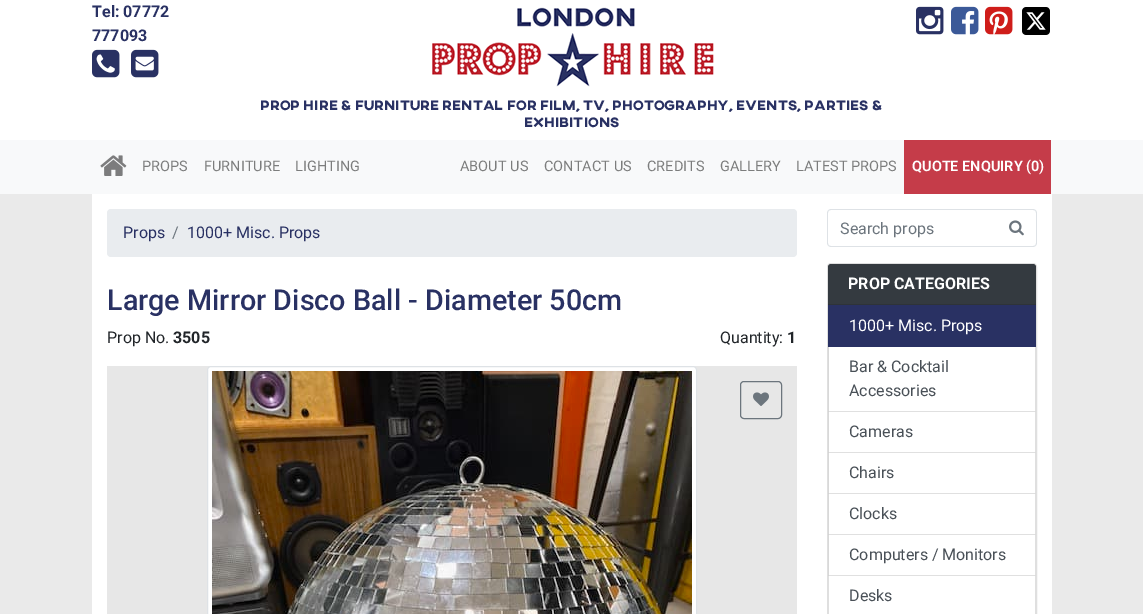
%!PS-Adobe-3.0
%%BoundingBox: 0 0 1143 614
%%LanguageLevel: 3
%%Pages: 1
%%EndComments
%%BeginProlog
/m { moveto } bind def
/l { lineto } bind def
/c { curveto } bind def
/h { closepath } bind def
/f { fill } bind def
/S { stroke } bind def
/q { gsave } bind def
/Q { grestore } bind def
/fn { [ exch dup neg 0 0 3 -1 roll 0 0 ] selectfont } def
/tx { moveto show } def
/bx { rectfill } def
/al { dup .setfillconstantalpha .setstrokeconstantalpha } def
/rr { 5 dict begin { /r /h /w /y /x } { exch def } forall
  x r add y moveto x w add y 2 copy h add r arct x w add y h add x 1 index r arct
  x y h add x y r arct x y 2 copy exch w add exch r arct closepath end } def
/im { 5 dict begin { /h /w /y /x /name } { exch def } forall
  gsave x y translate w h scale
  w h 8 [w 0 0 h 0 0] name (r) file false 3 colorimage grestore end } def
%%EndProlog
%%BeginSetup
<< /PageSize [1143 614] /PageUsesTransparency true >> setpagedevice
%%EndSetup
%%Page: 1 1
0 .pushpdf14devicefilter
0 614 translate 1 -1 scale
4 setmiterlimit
0.918 setgray
0 0 1143 614 bx
1 setgray
0 0 1143 140 bx
/Roboto-Bold 16 fn
0.161 0.192 0.388 setrgbcolor
(Tel: 07772) 92 17 tx
(777093) 92 41 tx
(image0.raw) 92 49 28 29 im
(image1.raw) 131 49 28 29 im
(image2.raw) 916 6 28 29 im
(image3.raw) 951 6 28 29 im
(image4.raw) 985 6 28 29 im
(image5.raw) 1022 7 28 28 im
(image6.raw) 432 7 282 80 im
/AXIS-ExtraBold 14 fn
(PROP HIRE & FURNITURE RENTAL FOR FILM, TV, PHOTOGRAPHY, EVENTS, PARTIES &) 260 110 tx
(EXHIBITIONS) 524 127 tx
0.973 0.976 0.98 setrgbcolor
0 140 1143 54 bx
(image7.raw) 100 155 27 21 im
/Roboto-Regular 14.5 fn
0.486 0.49 0.49 setrgbcolor
(PROPS) 142 171 tx
(FURNITURE) 204 171 tx
(LIGHTING) 295 171 tx
(ABOUT US) 460 171 tx
(CONTACT US) 544 171 tx
(CREDITS) 647 171 tx
(GALLERY) 720 171 tx
(LATEST PROPS) 796 171 tx
0.773 0.235 0.286 setrgbcolor
904 140 147 54 bx
/Roboto-SemiBold 14.5 fn
1 setgray
(QUOTE ENQUIRY \(0\)) 912 171 tx
92 194 960 420 bx
0.914 0.925 0.937 setrgbcolor
107 209 690 48 4 rr f
/Roboto-Regular 16 fn
0.161 0.192 0.388 setrgbcolor
(Props) 123 238 tx
0.424 0.459 0.49 setrgbcolor
(/) 172 238 tx
0.161 0.192 0.388 setrgbcolor
(1000+ Misc. Props) 187 238 tx
/Roboto-Medium 28.75 fn
(Large Mirror Disco Ball - Diameter 50cm) 107 310 tx
/Roboto-Regular 16 fn
0.129 0.145 0.161 setrgbcolor
(Prop No.) 107 343 tx
/Roboto-Bold 16 fn
(3505) 173 343 tx
/Roboto-Regular 16 fn
(Quantity:) 720 343 tx
/Roboto-Bold 16 fn
(1) 787 343 tx
0.906 setgray
107 366 690 248 bx
1 setgray
207.5 366.5 489 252 3.5 rr q f Q
0.871 0.886 0.902 setrgbcolor
S
(image8.raw) 212 371 480 243 im
0.424 0.459 0.49 setrgbcolor
740.5 381.5 41 37 3.5 rr S
(image9.raw) 753 392 16 14 im
0.871 0.886 0.902 setrgbcolor
831 209 m 998 209 l 998 247 l 831 247 l 829 247 827 245 827 243 c 827 213 l 827 211 829 209 831 209 c h 831 210 m 998 210 l 998 246 l 831 246 l 829 246 828 245 828 243 c 828 213 l 828 211 829 210 831 210 c h eofill
/Roboto-Regular 16 fn
0.424 0.459 0.49 setrgbcolor
(Search props) 840 234 tx
0.871 0.886 0.902 setrgbcolor
997 209 m 1033 209 l 1035 209 1037 211 1037 213 c 1037 243 l 1037 245 1035 247 1033 247 c 997 247 l h 997 210 m 1033 210 l 1035 210 1036 211 1036 213 c 1036 243 l 1036 245 1035 246 1033 246 c 997 246 l h eofill
(image10.raw) 1009 220 15 16 im
0.875 setgray
827.5 263.5 209 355 3.5 rr S
0.204 0.227 0.251 setrgbcolor
831 264 m 1033 264 l 1034.5 264 1036 265.5 1036 267 c 1036 305 l 828 305 l 828 267 l 828 265.5 829.5 264 831 264 c h f
0.18 0.2 0.22 setrgbcolor
828 304 208 1 bx
/Roboto-Bold 16 fn
1 setgray
(PROP CATEGORIES) 848 289 tx
0.161 0.192 0.388 setrgbcolor
828 305 208 42 bx
/Roboto-Regular 16 fn
1 setgray
(1000+ Misc. Props) 849 331 tx
0.875 setgray
1036 347 m 1036 412 l 1035 411 l 1035 347 l h f
0.12 al
0 setgray
1036 412 m 828 412 l 829 411 l 1035 411 l h f
828 412 m 828 347 l 829 347 l 829 411 l h f
1 al
0.286 0.314 0.341 setrgbcolor
(Bar & Cocktail) 849 372 tx
(Accessories) 849 396 tx
0.875 setgray
1036 412 m 1036 453 l 1035 452 l 1035 412 l h f
0.12 al
0 setgray
1036 453 m 828 453 l 829 452 l 1035 452 l h f
828 453 m 828 412 l 829 412 l 829 452 l h f
1 al
0.286 0.314 0.341 setrgbcolor
(Cameras) 849 437 tx
0.875 setgray
1036 453 m 1036 494 l 1035 493 l 1035 453 l h f
0.12 al
0 setgray
1036 494 m 828 494 l 829 493 l 1035 493 l h f
828 494 m 828 453 l 829 453 l 829 493 l h f
1 al
0.286 0.314 0.341 setrgbcolor
(Chairs) 849 478 tx
0.875 setgray
1036 494 m 1036 535 l 1035 534 l 1035 494 l h f
0.12 al
0 setgray
1036 535 m 828 535 l 829 534 l 1035 534 l h f
828 535 m 828 494 l 829 494 l 829 534 l h f
1 al
0.286 0.314 0.341 setrgbcolor
(Clocks) 849 519 tx
0.875 setgray
1036 535 m 1036 576 l 1035 575 l 1035 535 l h f
0.12 al
0 setgray
1036 576 m 828 576 l 829 575 l 1035 575 l h f
828 576 m 828 535 l 829 535 l 829 575 l h f
1 al
0.286 0.314 0.341 setrgbcolor
(Computers / Monitors) 849 560 tx
0.875 setgray
1036 576 m 1036 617 l 1035 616 l 1035 576 l h f
828 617 m 828 576 l 829 576 l 829 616 l h f
0.286 0.314 0.341 setrgbcolor
(Desks) 849 601 tx
.poppdf14devicefilter showpage
%%EOF
